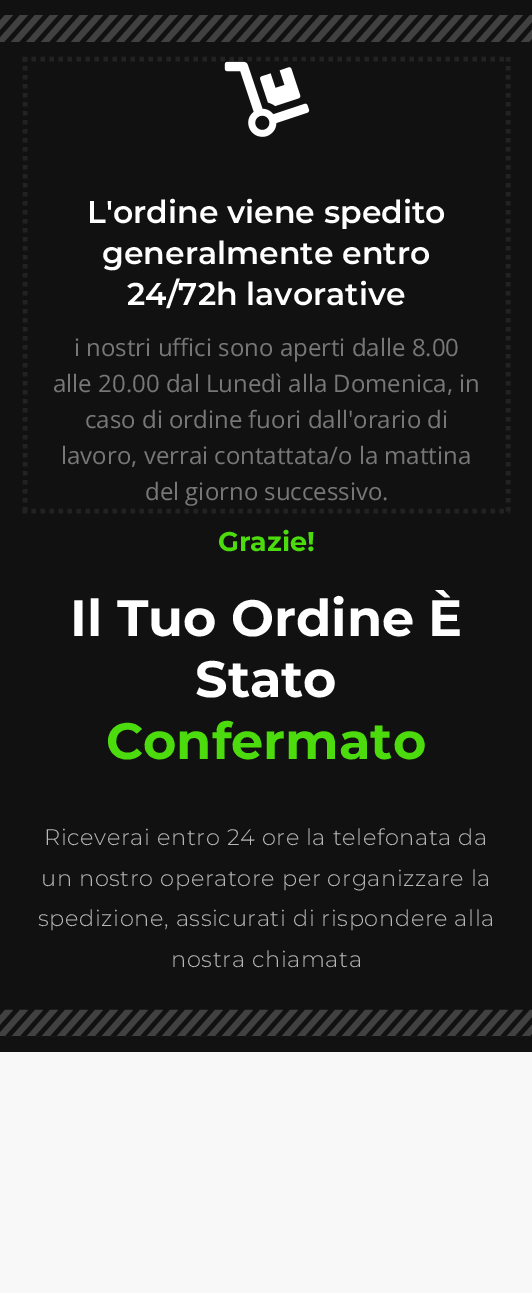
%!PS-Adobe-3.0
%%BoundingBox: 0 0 532 1301
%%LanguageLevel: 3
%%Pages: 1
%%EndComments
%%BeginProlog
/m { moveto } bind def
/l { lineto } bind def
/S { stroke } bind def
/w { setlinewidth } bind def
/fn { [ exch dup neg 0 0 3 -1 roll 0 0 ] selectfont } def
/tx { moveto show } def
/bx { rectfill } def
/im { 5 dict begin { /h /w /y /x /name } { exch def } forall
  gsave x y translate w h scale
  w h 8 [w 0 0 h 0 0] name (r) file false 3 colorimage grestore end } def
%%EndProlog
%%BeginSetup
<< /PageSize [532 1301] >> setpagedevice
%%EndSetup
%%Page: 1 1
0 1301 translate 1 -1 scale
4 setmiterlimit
1 setgray
0 0 532 1301 bx
0.067 setgray
0 0 532 1052 bx
(image0.raw) 0 15 532 27 im
0.133 setgray
4.5 w
[4.5 4.5] 0 setdash
22.5 59 m 510 59 l S
508 57 m 508 513 l S
22.5 511 m 510 511 l S
25 57 m 25 513 l S
(image1.raw) 224 61 86 76 im
/Montserrat-SemiBold 31.5 fn
1 setgray
(L'ordine viene spedito) 87 223 tx
(generalmente entro) 102 264 tx
(24/72h lavorative) 127 305 tx
/OpenSans-Regular 24 fn
0.467 setgray
(i nostri uffici sono aperti dalle 8.00) 74 356 tx
(alle 20.00 dal Lunedì alla Domenica, in) 53 392 tx
(caso di ordine fuori dall'orario di) 85 428 tx
(lavoro, verrai contattata/o la mattina) 61 464 tx
(del giorno successivo.) 145 500 tx
/Montserrat-Bold 27 fn
0.298 0.863 0.051 setrgbcolor
(Grazie!) 218 551 tx
/Montserrat-Bold 51 fn
1 setgray
(Il Tuo Ordine È) 70 636 tx
(Stato) 195 697 tx
0.298 0.863 0.051 setrgbcolor
(Confermato) 106 759 tx
/Montserrat-Light 22.5 fn
0.722 setgray
44 845 m 0.6 0 (Riceverai entro 24 ore la telefonata da) ashow
41 886 m 0.6 0 (un nostro operatore per organizzare la) ashow
38 926 m 0.6 0 (spedizione, assicurati di rispondere alla) ashow
171 967 m 0.6 0 (nostra chiamata) ashow
(image2.raw) 0 1009 532 28 im
0.973 setgray
0 1052 532 241 bx
showpage
%%EOF
